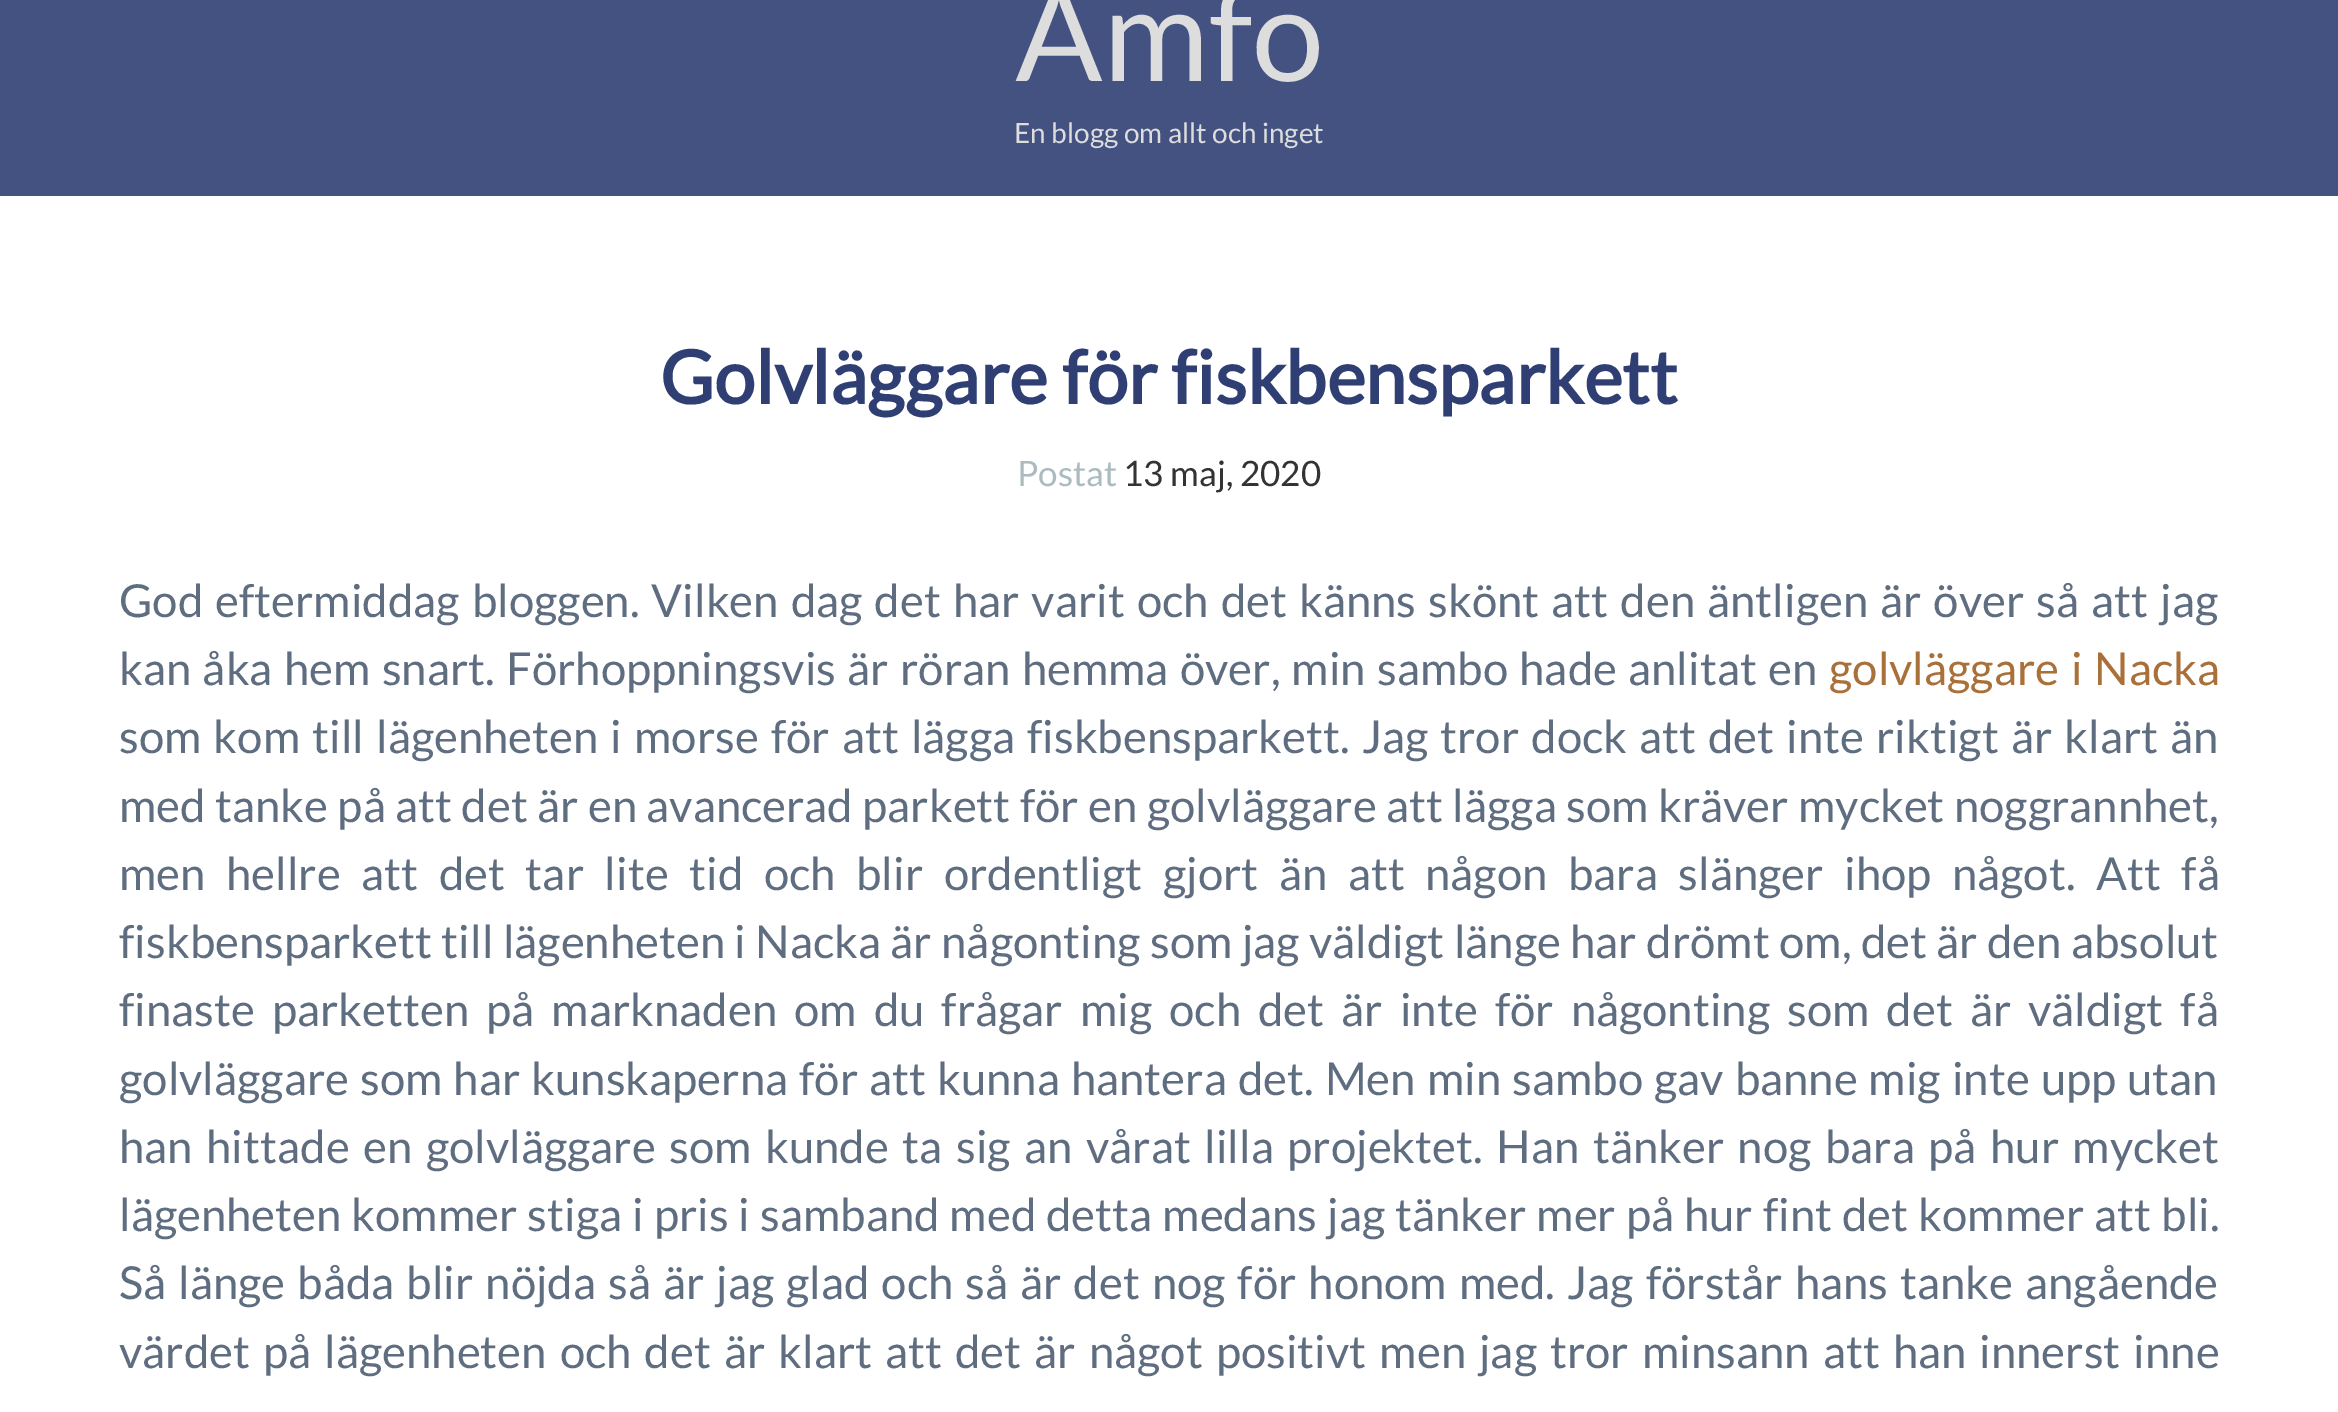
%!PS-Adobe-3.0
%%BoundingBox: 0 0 2338 1412
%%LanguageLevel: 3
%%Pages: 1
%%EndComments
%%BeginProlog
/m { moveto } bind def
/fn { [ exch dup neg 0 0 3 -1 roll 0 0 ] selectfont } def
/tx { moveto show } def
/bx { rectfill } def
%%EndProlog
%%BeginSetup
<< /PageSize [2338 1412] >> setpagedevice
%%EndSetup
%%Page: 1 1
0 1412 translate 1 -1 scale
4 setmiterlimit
1 setgray
0 0 2338 1412 bx
0.267 0.322 0.506 setrgbcolor
0 0 2338 196 bx
/Lato-Regular 129 fn
0.867 setgray
(Amfo) 1015 81 tx
/Lato-Regular 28 fn
(En blogg om allt och inget) 1014 143 tx
/Lato-Bold 73.5 fn
0.184 0.247 0.451 setrgbcolor
(Golvläggare för fiskbensparkett) 660 404 tx
/Lato-Regular 35 fn
0.671 0.733 0.753 setrgbcolor
(Postat) 1017 486 tx
0.2 setgray
(13 maj, 2020) 1123 486 tx
/Lato-Regular 45.5 fn
0.373 0.427 0.502 setrgbcolor
119 617 m 3.25 0 32 (God eftermiddag bloggen. Vilken dag det har varit och det känns skönt att den äntligen är över så att jag) widthshow
119 685 m 2.5 0 32 (kan åka hem snart. Förhoppningsvis är röran hemma över, min sambo hade anlitat en) widthshow
0.667 0.439 0.224 setrgbcolor
1829 685 m 3 0 32 (golvläggare i Nacka) widthshow
0.373 0.427 0.502 setrgbcolor
119 753 m 3.25 0 32 (som kom till lägenheten i morse för att lägga fiskbensparkett. Jag tror dock att det inte riktigt är klart än) widthshow
119 822 m 0.6 0 32 (med tanke på att det är en avancerad parkett för en golvläggare att lägga som kräver mycket noggrannhet,) widthshow
119 890 m 11.75 0 32 (men hellre att det tar lite tid och blir ordentligt gjort än att någon bara slänger ihop något. Att få) widthshow
119 958 m 0.6 0 32 (fiskbensparkett till lägenheten i Nacka är någonting som jag väldigt länge har drömt om, det är den absolut) widthshow
119 1026 m 8.25 0 32 (finaste parketten på marknaden om du frågar mig och det är inte för någonting som det är väldigt få) widthshow
119 1095 m 2.25 0 32 (golvläggare som har kunskaperna för att kunna hantera det. Men min sambo gav banne mig inte upp utan) widthshow
119 1163 m 4.75 0 32 (han hittade en golvläggare som kunde ta sig an vårat lilla projektet. Han tänker nog bara på hur mycket) widthshow
119 1231 m 1.2 0 32 (lägenheten kommer stiga i pris i samband med detta medans jag tänker mer på hur fint det kommer att bli.) widthshow
119 1299 m 3.2 0 32 (Så länge båda blir nöjda så är jag glad och så är det nog för honom med. Jag förstår hans tanke angående) widthshow
119 1368 m 4.25 0 32 (värdet på lägenheten och det är klart att det är något positivt men jag tror minsann att han innerst inne) widthshow
showpage
%%EOF
